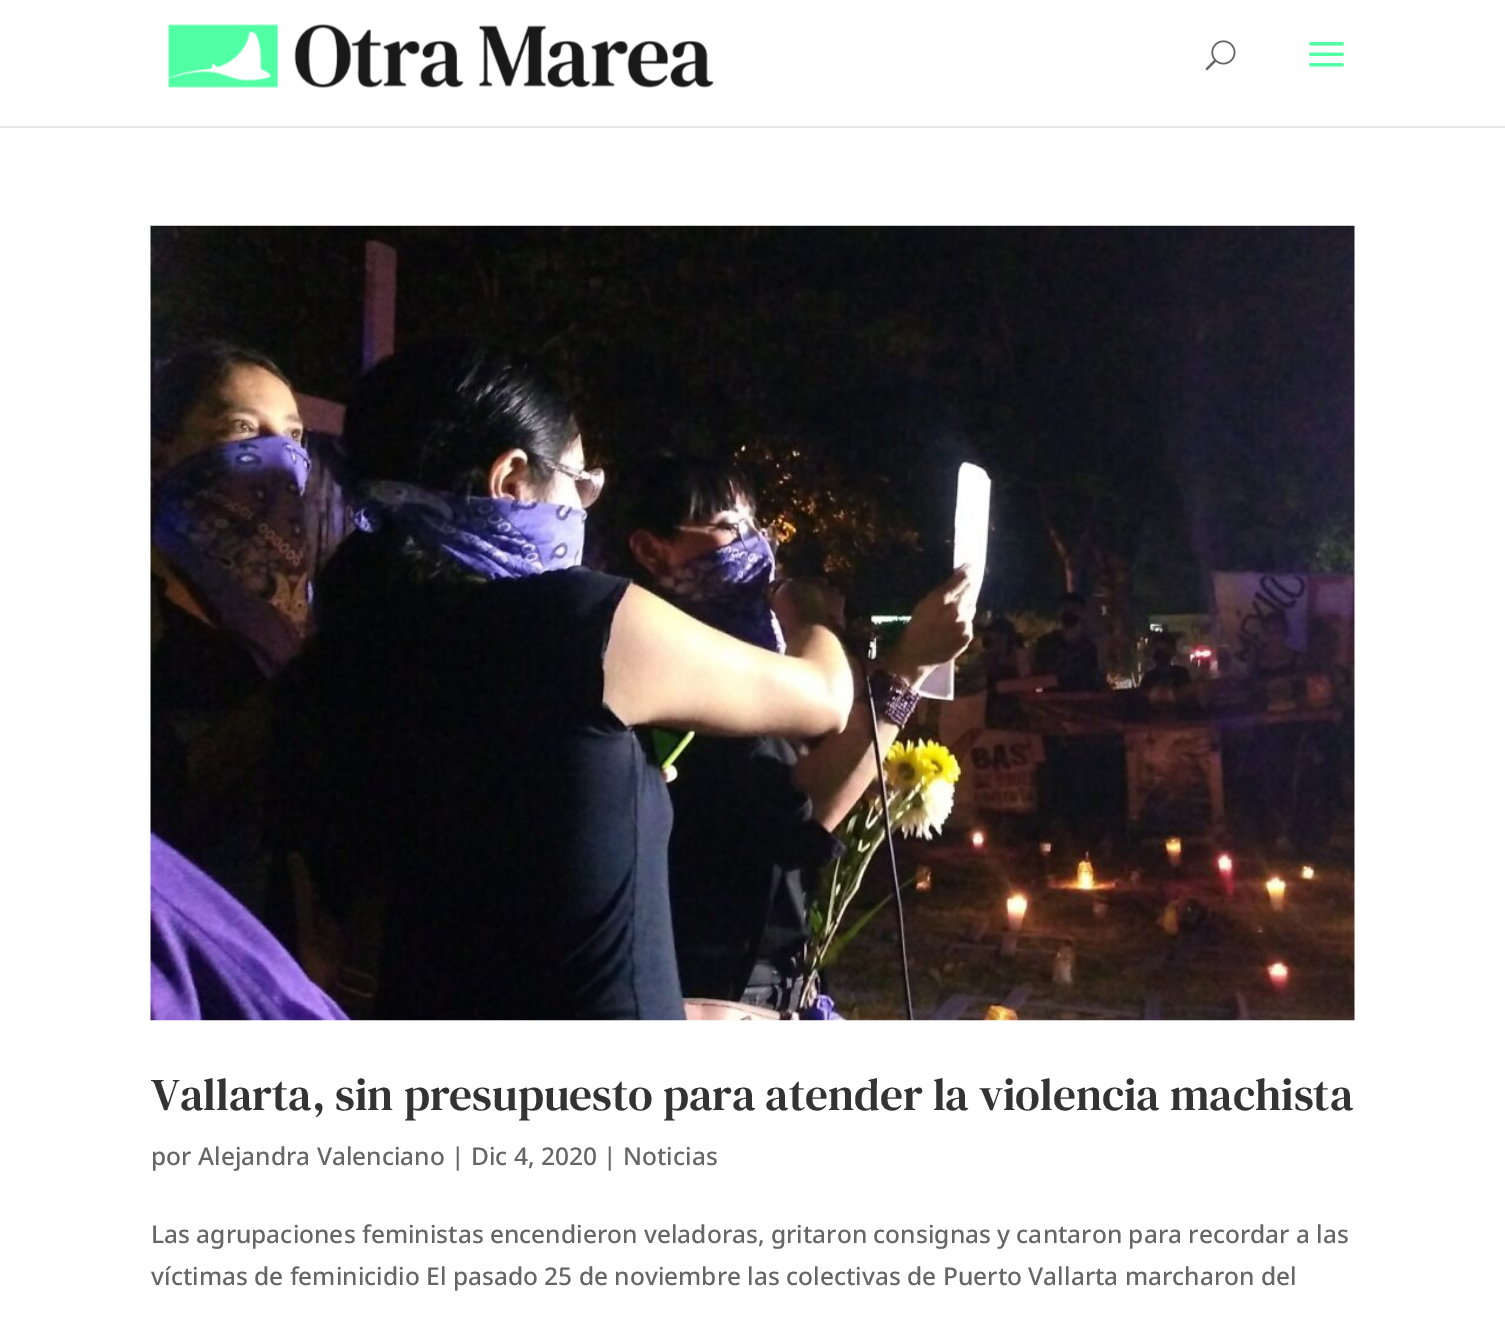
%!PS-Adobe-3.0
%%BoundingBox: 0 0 1505 1319
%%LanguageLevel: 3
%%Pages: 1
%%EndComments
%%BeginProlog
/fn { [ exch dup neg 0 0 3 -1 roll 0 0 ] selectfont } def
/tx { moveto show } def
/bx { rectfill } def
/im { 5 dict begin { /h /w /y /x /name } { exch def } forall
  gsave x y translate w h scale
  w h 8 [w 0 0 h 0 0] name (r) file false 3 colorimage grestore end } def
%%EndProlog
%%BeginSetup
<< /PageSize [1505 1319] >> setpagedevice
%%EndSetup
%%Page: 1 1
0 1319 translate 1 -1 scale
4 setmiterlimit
1 setgray
0 0 1505 1319 bx
0.902 setgray
0 126 1505 2 bx
(image0.raw) 167 24 547 64 im
(image1.raw) 1205 40 31 31 im
(image2.raw) 1309 42 35 25 im
(image3.raw) 150 225 1205 796 im
/DMSerifText-Regular 45.5 fn
0.2 setgray
(Vallarta, sin presupuesto para atender la violencia machista) 151 1110 tx
/NotoSans-Medium 24.5 fn
0.4 setgray
(por Alejandra Valenciano | Dic 4, 2020 | Noticias) 151 1165 tx
(Las agrupaciones feministas encendieron veladoras, gritaron consignas y cantaron para recordar a las) 151 1243 tx
(víctimas de feminicidio El pasado 25 de noviembre las colectivas de Puerto Vallarta marcharon del) 151 1285 tx
showpage
%%EOF
